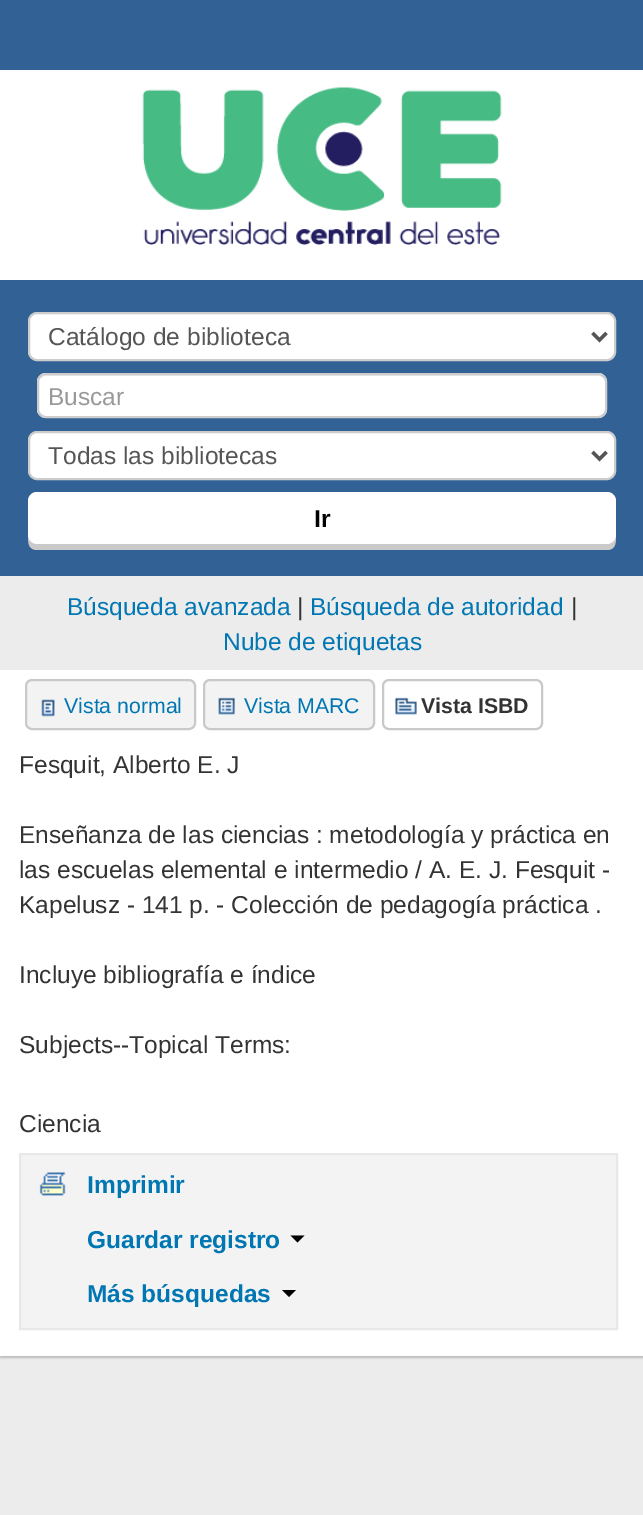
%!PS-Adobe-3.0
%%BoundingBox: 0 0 643 1515
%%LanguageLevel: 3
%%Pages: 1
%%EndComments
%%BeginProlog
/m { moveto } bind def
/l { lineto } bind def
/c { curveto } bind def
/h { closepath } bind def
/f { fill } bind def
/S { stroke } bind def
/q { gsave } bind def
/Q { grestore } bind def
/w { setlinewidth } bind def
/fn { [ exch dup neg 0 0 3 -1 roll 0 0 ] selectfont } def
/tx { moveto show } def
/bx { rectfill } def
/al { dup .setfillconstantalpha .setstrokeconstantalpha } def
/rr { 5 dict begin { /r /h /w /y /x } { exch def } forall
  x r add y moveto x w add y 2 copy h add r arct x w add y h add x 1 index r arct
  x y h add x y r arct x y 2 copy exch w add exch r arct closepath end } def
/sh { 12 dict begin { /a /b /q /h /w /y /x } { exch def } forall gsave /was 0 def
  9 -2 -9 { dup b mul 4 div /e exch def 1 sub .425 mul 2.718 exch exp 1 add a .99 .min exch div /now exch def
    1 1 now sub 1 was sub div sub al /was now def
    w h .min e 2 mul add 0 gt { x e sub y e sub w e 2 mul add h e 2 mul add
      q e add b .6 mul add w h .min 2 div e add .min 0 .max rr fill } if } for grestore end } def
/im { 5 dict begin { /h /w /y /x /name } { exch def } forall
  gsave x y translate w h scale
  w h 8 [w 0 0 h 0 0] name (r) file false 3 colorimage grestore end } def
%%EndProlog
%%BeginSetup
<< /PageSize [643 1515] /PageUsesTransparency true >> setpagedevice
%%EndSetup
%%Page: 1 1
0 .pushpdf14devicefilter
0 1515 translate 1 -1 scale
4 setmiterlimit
0.925 setgray
0 0 643 1515 bx
0.196 0.384 0.584 setrgbcolor
0 0 643 70 bx
1 setgray
0 70 643 210 bx
(image0.raw) 142 87 360 158 im
0.196 0.384 0.584 setrgbcolor
0 280 643 296 bx
1 setgray
29 313 586 47 8 rr q f Q
0.8 setgray
2 w
S
0.333 setgray
3.5 w
592.5 333 m 599.5 340 l 606.5 333 l S
/LiberationSans-Regular 24.5 fn
(Catálogo de biblioteca) 48 345 tx
1 setgray
37 373 570 45 9 rr f
0.925 setgray
46 376 m 598 376 l 602 376 606 379 606 383 c 606 382 l 606 378 603 375 599 375 c 46 375 l 43 375 41 376 40 379 c 41 377 44 376 46 376 c h f
0.8 setgray
2 w
38 374 568 43 8 rr S
0.6 setgray
(Buscar) 48 405 tx
1 setgray
29 432 586 47 8 rr q f Q
0.8 setgray
S
0.333 setgray
3.5 w
592.5 452 m 599.5 459 l 606.5 452 l S
(Todas las bibliotecas) 48 464 tx
0.792 setgray
28 536 m 28 542 28 550 37 550 c 607 550 l 616 550 616 542 616 536 c 616 540 612 544 607 544 c 37 544 l 32 544 28 540 28 536 c h f
1 setgray
28 492 588 52 9 rr f
/LiberationSans-Bold 24.5 fn
0 setgray
(Ir) 314 527 tx
/LiberationSans-Regular 24.5 fn
0 0.463 0.698 setrgbcolor
(Búsqueda avanzada) 67 615 tx
0.2 setgray
(|) 297 615 tx
0 0.463 0.698 setrgbcolor
(Búsqueda de autoridad) 310 615 tx
0.2 setgray
(|) 571 615 tx
0 0.463 0.698 setrgbcolor
(Nube de etiquetas) 223 650 tx
0 setgray
0 672 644 686 0 1 0.2 sh
1 setgray
0 670 643 686 bx
0.953 setgray
26 680 169 49 6 rr q f Q
0.788 setgray
2 w
S
(image1.raw) 41 699 14 18 im
/LiberationSans-Regular 21.25 fn
0 0.463 0.698 setrgbcolor
(Vista normal) 64 713 tx
0.953 setgray
204 680 170 49 6 rr q f Q
0.788 setgray
S
(image2.raw) 218 697 17 18 im
0 0.463 0.698 setrgbcolor
(Vista MARC) 244 713 tx
0.788 setgray
383 680 159 49 6 rr S
(image3.raw) 395 697 22 18 im
/LiberationSans-Bold 21.25 fn
0.2 setgray
(Vista ISBD) 421 713 tx
/LiberationSans-Regular 24.5 fn
(Fesquit, Alberto E. J) 19 773 tx
(Enseñanza de las ciencias : metodología y práctica en) 19 843 tx
(las escuelas elemental e intermedio / A. E. J. Fesquit -) 19 878 tx
(Kapelusz - 141 p. - Colección de pedagogía práctica .) 19 913 tx
(Incluye bibliografía e índice) 19 983 tx
(Subjects--Topical Terms:) 19 1053 tx
(Ciencia) 19 1132 tx
0.953 setgray
20 1154 m 617 1154 l 617 1329 l 20 1329 l h q f Q
0.91 setgray
S
(image4.raw) 39 1172 27 24 im
/LiberationSans-Bold 24.5 fn
0 0.463 0.698 setrgbcolor
(Imprimir) 87 1193 tx
(Guardar registro) 87 1248 tx
0 setgray
290.5 1235.5 m 304.5 1235.5 l 297.5 1242.5 l h f
0 0.463 0.698 setrgbcolor
(Más búsquedas) 87 1302 tx
0 setgray
282 1290 m 296 1290 l 289 1297 l h f
.poppdf14devicefilter showpage
%%EOF
